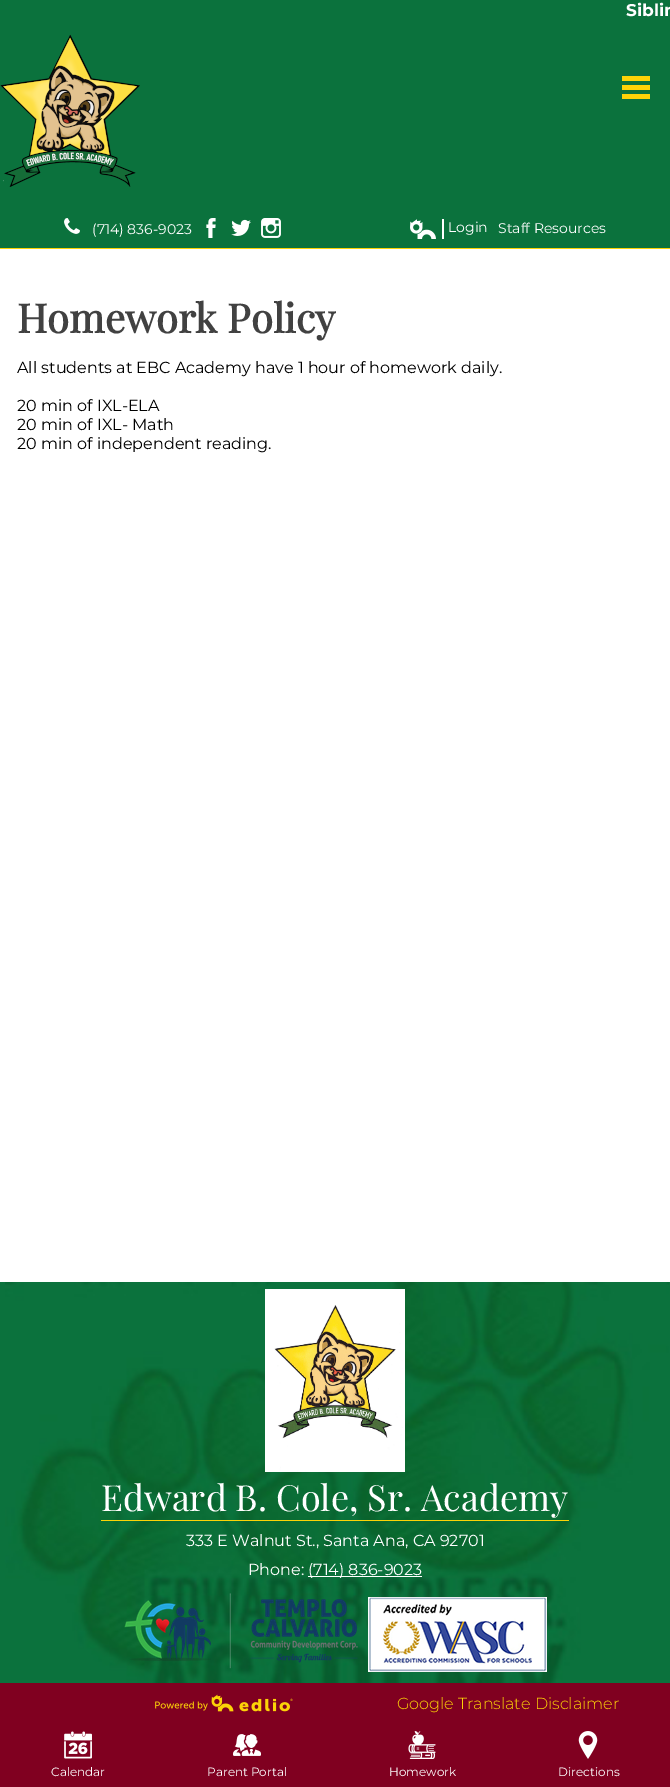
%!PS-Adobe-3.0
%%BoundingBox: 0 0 670 1787
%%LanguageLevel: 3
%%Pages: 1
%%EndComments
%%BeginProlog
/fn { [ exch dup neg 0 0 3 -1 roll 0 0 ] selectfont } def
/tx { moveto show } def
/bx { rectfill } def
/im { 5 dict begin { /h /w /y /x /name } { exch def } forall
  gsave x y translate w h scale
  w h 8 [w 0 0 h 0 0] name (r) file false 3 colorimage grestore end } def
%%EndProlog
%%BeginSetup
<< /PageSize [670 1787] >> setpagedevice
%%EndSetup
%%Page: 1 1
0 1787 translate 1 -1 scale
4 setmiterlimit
0.043 0.447 0.239 setrgbcolor
0 0 670 1787 bx
/Montserrat-Bold 17 fn
1 setgray
(Siblin) 626 16 tx
(image0.raw) 0 34 140 153 im
0.988 0.827 0.027 setrgbcolor
622 76 28 5 bx
622 85 28 5 bx
622 94 28 5 bx
0 248 670 1 bx
(image1.raw) 64 218 16 16 im
/Montserrat-Regular 14 fn
1 setgray
(\(714\) 836-9023) 92 234 tx
(image2.raw) 206 218 10 20 im
(image3.raw) 231 219 20 17 im
(image4.raw) 261 218 20 20 im
442 219 2 20 bx
(image5.raw) 410 219 26 20 im
(Login) 448 232 tx
(Staff Resources) 498 233 tx
0 249 670 1033 bx
/PlayfairDisplay-Bold 40 fn
0.255 setgray
(Homework Policy) 17 333 tx
/Montserrat-Regular 16 fn
0 setgray
(All students at EBC Academy have 1 hour of homework daily.) 17 373 tx
(20 min of IXL-ELA) 17 411 tx
(20 min of IXL- Math) 17 430 tx
(20 min of independent reading.) 17 449 tx
(image6.raw) 5 1282 664 401 im
(image7.raw) 265 1289 140 183 im
0.988 0.827 0.027 setrgbcolor
101 1520 468 1 bx
/PlayfairDisplay-Regular 36 fn
1 setgray
(Edward B. Cole, Sr. Academy) 101 1511 tx
/Montserrat-Regular 16 fn
(333 E Walnut St., Santa Ana, CA 92701) 186 1546 tx
(Phone:) 248 1575 tx
308 1576 114 1 bx
(\(714\) 836-9023) 308 1575 tx
(image8.raw) 124 1593 234 76 im
(image9.raw) 368 1597 179 75 im
0.502 0 0.125 setrgbcolor
0 1683 670 104 bx
(image10.raw) 155 1694 138 18 im
/Montserrat-Light 16 fn
0.988 0.827 0.027 setrgbcolor
(Google Translate Disclaimer) 397 1709 tx
(image11.raw) 64 1731 28 28 im
/Montserrat-Regular 12 fn
1 setgray
(Calendar) 51 1776 tx
(image12.raw) 233 1734 28 22 im
(Parent Portal) 207 1776 tx
(image13.raw) 408 1731 28 28 im
(Homework) 389 1776 tx
(image14.raw) 578 1731 20 28 im
(Directions) 558 1776 tx
showpage
%%EOF
